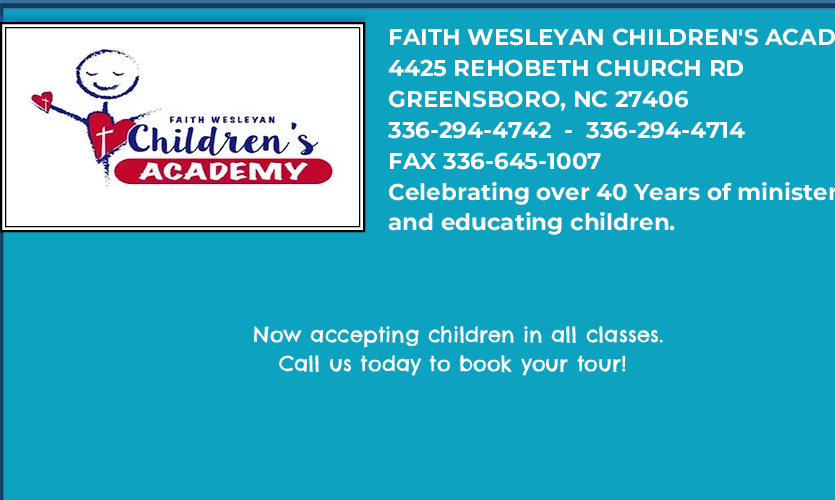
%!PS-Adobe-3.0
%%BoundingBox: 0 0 835 500
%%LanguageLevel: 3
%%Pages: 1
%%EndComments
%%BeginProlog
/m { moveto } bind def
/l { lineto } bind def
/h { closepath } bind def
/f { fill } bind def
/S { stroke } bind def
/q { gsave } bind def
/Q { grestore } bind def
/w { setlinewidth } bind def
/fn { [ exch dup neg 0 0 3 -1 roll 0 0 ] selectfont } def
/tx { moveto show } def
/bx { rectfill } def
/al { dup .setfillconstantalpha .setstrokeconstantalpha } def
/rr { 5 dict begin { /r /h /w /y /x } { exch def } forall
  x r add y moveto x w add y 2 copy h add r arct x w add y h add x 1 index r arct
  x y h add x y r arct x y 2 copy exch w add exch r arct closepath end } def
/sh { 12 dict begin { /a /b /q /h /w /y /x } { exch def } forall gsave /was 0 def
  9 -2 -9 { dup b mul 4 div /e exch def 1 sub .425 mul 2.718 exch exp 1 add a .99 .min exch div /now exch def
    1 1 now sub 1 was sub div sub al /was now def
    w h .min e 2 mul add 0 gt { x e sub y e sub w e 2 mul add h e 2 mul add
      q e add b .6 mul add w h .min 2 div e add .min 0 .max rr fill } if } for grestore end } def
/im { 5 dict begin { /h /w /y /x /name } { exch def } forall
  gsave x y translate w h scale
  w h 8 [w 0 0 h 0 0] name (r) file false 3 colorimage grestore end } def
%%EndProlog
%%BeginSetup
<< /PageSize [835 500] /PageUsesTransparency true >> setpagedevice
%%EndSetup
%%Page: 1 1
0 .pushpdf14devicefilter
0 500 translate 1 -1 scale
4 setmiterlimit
0.047 0.235 0.376 setrgbcolor
0 0 835 500 bx
0.224 0.447 0.608 setrgbcolor
3 w
-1.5 1.5 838 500 rectstroke
0.051 0.635 0.749 setrgbcolor
3.5 8.5 m 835.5 8.5 l 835.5 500.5 l 3.5 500.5 l h q f Q
0.224 0.447 0.608 setrgbcolor
1 w
S
0.078 0.408 0.659 setrgbcolor
-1 17 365 210 0 2 0.6 sh
1 setgray
1 23 m 364 23 l 364 231 l 1 231 l h q f Q
0 setgray
2 w
S
(image0.raw) 26 49 313 140 im
1 w
5.5 27.5 354 199 rectstroke
/Montserrat-Bold 23 fn
1 setgray
(FAITH WESLEYAN CHILDREN'S ACAD) 388 45 tx
(4425 REHOBETH CHURCH RD) 388 76 tx
(GREENSBORO, NC 27406) 388 107 tx
(336-294-4742  -  336-294-4714) 388 138 tx
(FAX 336-645-1007) 388 169 tx
(Celebrating over 40 Years of minister) 388 200 tx
(and educating children.) 388 230 tx
/ChelseaMarket-Regular 21 fn
(Now accepting children in all classes.) 253 342 tx
(Call us today to book your tour!) 279 371 tx
.poppdf14devicefilter showpage
%%EOF
